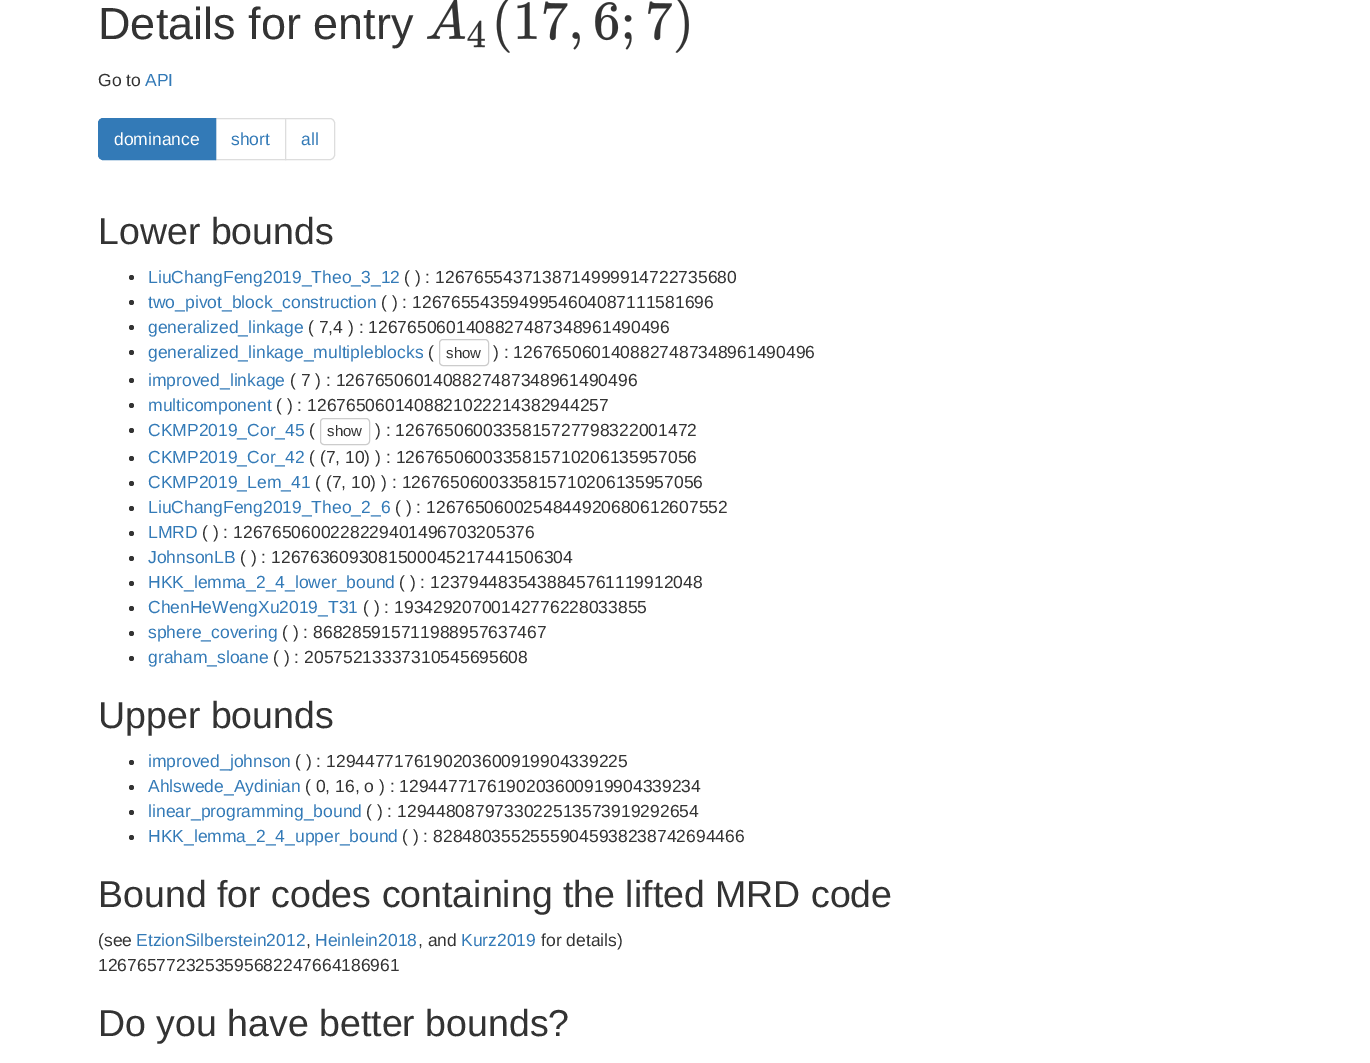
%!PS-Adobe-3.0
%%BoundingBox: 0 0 1370 1063
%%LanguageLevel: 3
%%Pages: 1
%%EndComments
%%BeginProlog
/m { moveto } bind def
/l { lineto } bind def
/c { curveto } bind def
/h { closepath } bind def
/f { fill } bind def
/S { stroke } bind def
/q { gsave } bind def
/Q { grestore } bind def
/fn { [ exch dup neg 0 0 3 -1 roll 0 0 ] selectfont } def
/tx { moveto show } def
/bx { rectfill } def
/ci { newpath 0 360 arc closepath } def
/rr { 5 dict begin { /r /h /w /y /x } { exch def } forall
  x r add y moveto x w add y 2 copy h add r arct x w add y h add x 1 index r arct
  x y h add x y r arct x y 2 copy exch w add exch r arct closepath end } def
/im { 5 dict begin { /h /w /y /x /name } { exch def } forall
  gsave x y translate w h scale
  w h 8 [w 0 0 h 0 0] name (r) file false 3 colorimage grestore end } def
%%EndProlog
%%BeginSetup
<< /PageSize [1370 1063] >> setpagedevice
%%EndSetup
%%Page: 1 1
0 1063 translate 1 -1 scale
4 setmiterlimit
1 setgray
0 0 1370 1063 bx
/LiberationSans-Regular 45 fn
0.2 setgray
(Details for entry) 98 39 tx
(image0.raw) 426 0 263 53 im
/LiberationSans-Regular 17.5 fn
(Go to) 98 86 tx
0.2 0.478 0.718 setrgbcolor
(API) 145 86 tx
0.867 setgray
215.5 118.5 70 41 rectstroke
0.2 0.478 0.718 setrgbcolor
103 118.5 m 215.5 118.5 l 215.5 159.5 l 103 159.5 l 100.5 159.5 98.5 157.5 98.5 155 c 98.5 123 l 98.5 120.5 100.5 118.5 103 118.5 c h q f Q
S
1 setgray
(dominance) 114 145 tx
0.2 0.478 0.718 setrgbcolor
(short) 231 145 tx
1 setgray
285.5 118.5 m 330 118.5 l 332.5 118.5 334.5 120.5 334.5 123 c 334.5 155 l 334.5 157.5 332.5 159.5 330 159.5 c 285.5 159.5 l h q f Q
0.867 setgray
S
0.2 0.478 0.718 setrgbcolor
(all) 301 145 tx
/LiberationSans-Regular 37.5 fn
0.2 setgray
(Lower bounds) 98 244 tx
131.5 277.5 2.5 ci f
/LiberationSans-Regular 17.5 fn
0.2 0.478 0.718 setrgbcolor
(LiuChangFeng2019_Theo_3_12) 148 283 tx
0.2 setgray
(\( \) : 1267655437138714999914722735680) 404 283 tx
131.5 302.5 2.5 ci f
0.2 0.478 0.718 setrgbcolor
(two_pivot_block_construction) 148 308 tx
0.2 setgray
(\( \) : 1267655435949954604087111581696) 381 308 tx
131.5 327.5 2.5 ci f
0.2 0.478 0.718 setrgbcolor
(generalized_linkage) 148 333 tx
0.2 setgray
(\( 7,4 \) : 1267650601408827487348961490496) 308 333 tx
131.5 352.5 2.5 ci f
0.2 0.478 0.718 setrgbcolor
(generalized_linkage_multipleblocks) 148 358 tx
0.2 setgray
(\() 428 358 tx
0.8 setgray
439.5 339.5 49 26 3.5 rr S
/LiberationSans-Regular 15 fn
0.2 setgray
(show) 446 358 tx
/LiberationSans-Regular 17.5 fn
(\) : 1267650601408827487348961490496) 493 358 tx
131.5 380.5 2.5 ci f
0.2 0.478 0.718 setrgbcolor
(improved_linkage) 148 386 tx
0.2 setgray
(\( 7 \) : 1267650601408827487348961490496) 290 386 tx
131.5 405.5 2.5 ci f
0.2 0.478 0.718 setrgbcolor
(multicomponent) 148 411 tx
0.2 setgray
(\( \) : 1267650601408821022214382944257) 276 411 tx
131.5 430.5 2.5 ci f
0.2 0.478 0.718 setrgbcolor
(CKMP2019_Cor_45) 148 436 tx
0.2 setgray
(\() 309 436 tx
0.8 setgray
320.5 418.5 49 26 3.5 rr S
/LiberationSans-Regular 15 fn
0.2 setgray
(show) 327 436 tx
/LiberationSans-Regular 17.5 fn
(\) : 1267650600335815727798322001472) 375 436 tx
131.5 458.5 2.5 ci f
0.2 0.478 0.718 setrgbcolor
(CKMP2019_Cor_42) 148 463 tx
0.2 setgray
(\( \(7, 10\) \) : 1267650600335815710206135957056) 309 463 tx
131.5 483.5 2.5 ci f
0.2 0.478 0.718 setrgbcolor
(CKMP2019_Lem_41) 148 488 tx
0.2 setgray
(\( \(7, 10\) \) : 1267650600335815710206135957056) 315 488 tx
131.5 508.5 2.5 ci f
0.2 0.478 0.718 setrgbcolor
(LiuChangFeng2019_Theo_2_6) 148 513 tx
0.2 setgray
(\( \) : 1267650600254844920680612607552) 395 513 tx
131.5 533.5 2.5 ci f
0.2 0.478 0.718 setrgbcolor
(LMRD) 148 538 tx
0.2 setgray
(\( \) : 1267650600228229401496703205376) 202 538 tx
131.5 558.5 2.5 ci f
0.2 0.478 0.718 setrgbcolor
(JohnsonLB) 148 563 tx
0.2 setgray
(\( \) : 1267636093081500045217441506304) 240 563 tx
131.5 583.5 2.5 ci f
0.2 0.478 0.718 setrgbcolor
(HKK_lemma_2_4_lower_bound) 148 588 tx
0.2 setgray
(\( \) : 1237944835438845761119912048) 399 588 tx
131.5 608.5 2.5 ci f
0.2 0.478 0.718 setrgbcolor
(ChenHeWengXu2019_T31) 148 613 tx
0.2 setgray
(\( \) : 19342920700142776228033855) 363 613 tx
131.5 633.5 2.5 ci f
0.2 0.478 0.718 setrgbcolor
(sphere_covering) 148 638 tx
0.2 setgray
(\( \) : 868285915711988957637467) 282 638 tx
131.5 658.5 2.5 ci f
0.2 0.478 0.718 setrgbcolor
(graham_sloane) 148 663 tx
0.2 setgray
(\( \) : 20575213337310545695608) 273 663 tx
/LiberationSans-Regular 37.5 fn
(Upper bounds) 98 728 tx
131.5 762.5 2.5 ci f
/LiberationSans-Regular 17.5 fn
0.2 0.478 0.718 setrgbcolor
(improved_johnson) 148 767 tx
0.2 setgray
(\( \) : 1294477176190203600919904339225) 295 767 tx
131.5 787.5 2.5 ci f
0.2 0.478 0.718 setrgbcolor
(Ahlswede_Aydinian) 148 792 tx
0.2 setgray
(\( 0, 16, o \) : 1294477176190203600919904339234) 305 792 tx
131.5 812.5 2.5 ci f
0.2 0.478 0.718 setrgbcolor
(linear_programming_bound) 148 817 tx
0.2 setgray
(\( \) : 1294480879733022513573919292654) 366 817 tx
131.5 837.5 2.5 ci f
0.2 0.478 0.718 setrgbcolor
(HKK_lemma_2_4_upper_bound) 148 842 tx
0.2 setgray
(\( \) : 82848035525559045938238742694466) 402 842 tx
/LiberationSans-Regular 37.5 fn
(Bound for codes containing the lifted MRD code) 98 907 tx
/LiberationSans-Regular 17.5 fn
(\(see) 98 946 tx
0.2 0.478 0.718 setrgbcolor
(EtzionSilberstein2012) 136 946 tx
0.2 setgray
(,) 306 946 tx
0.2 0.478 0.718 setrgbcolor
(Heinlein2018) 315 946 tx
0.2 setgray
(, and) 418 946 tx
0.2 0.478 0.718 setrgbcolor
(Kurz2019) 461 946 tx
0.2 setgray
(for details\)) 541 946 tx
(1267657723253595682247664186961) 98 971 tx
/LiberationSans-Regular 37.5 fn
(Do you have better bounds?) 98 1036 tx
showpage
%%EOF
